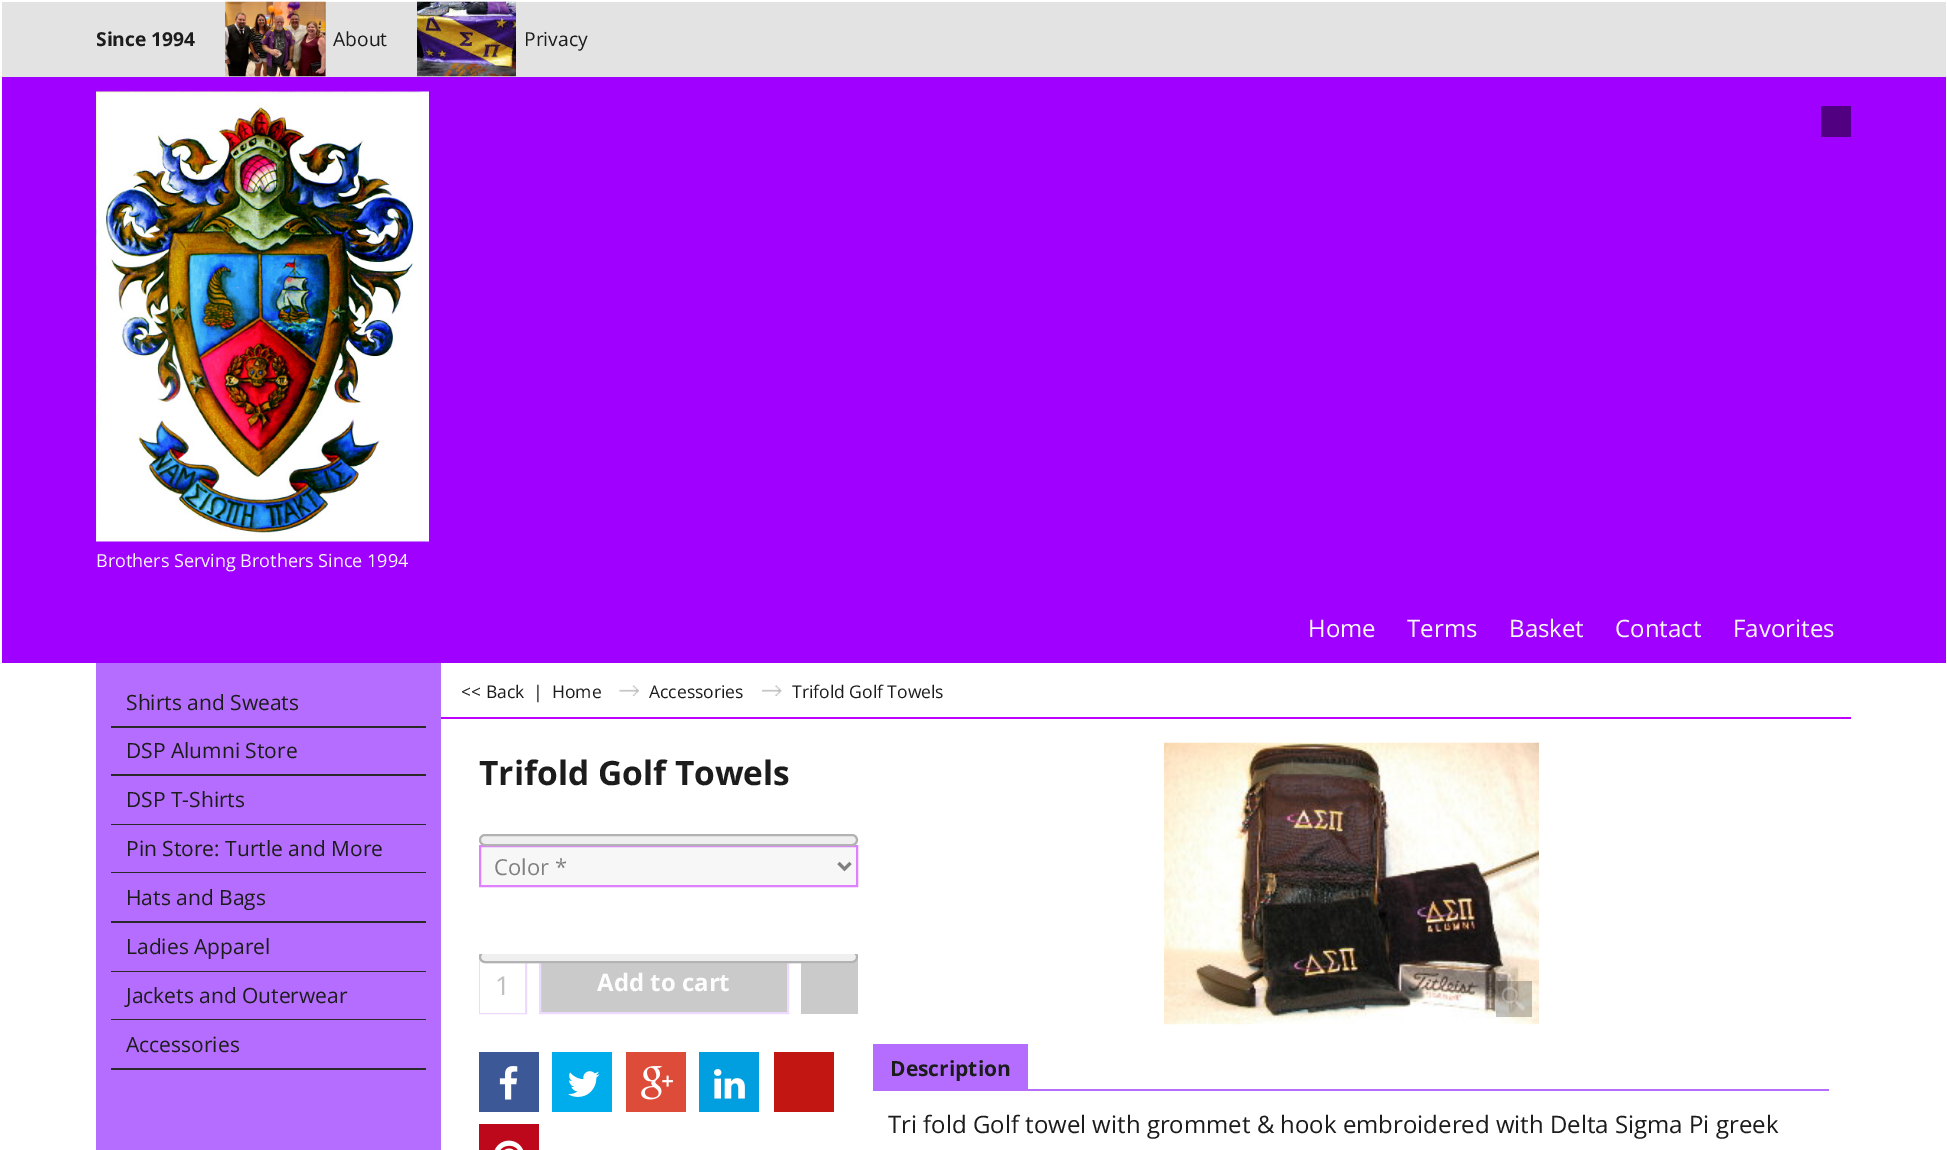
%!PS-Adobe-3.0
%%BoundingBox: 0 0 1947 1150
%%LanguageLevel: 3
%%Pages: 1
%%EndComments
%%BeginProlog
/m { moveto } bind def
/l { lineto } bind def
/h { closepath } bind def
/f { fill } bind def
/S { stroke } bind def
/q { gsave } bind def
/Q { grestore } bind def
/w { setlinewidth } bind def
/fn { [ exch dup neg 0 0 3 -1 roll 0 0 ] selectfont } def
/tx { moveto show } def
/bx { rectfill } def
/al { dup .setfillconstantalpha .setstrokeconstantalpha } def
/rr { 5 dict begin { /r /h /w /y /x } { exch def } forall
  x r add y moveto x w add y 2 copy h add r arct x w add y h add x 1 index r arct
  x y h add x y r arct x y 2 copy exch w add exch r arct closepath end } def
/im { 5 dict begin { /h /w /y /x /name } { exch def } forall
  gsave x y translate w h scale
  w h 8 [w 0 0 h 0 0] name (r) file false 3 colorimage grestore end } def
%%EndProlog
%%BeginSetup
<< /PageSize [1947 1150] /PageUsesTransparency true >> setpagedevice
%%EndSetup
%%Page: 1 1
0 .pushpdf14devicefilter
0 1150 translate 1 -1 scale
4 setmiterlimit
1 setgray
0 0 1947 1150 bx
0.624 0 1 setrgbcolor
2 77 1944 586 bx
0.89 setgray
2 2 1944 75 bx
/OpenSans-Bold 19.25 fn
0.11 setgray
(Since 1994) 96 46 tx
(image0.raw) 225 1 101 76 im
/OpenSans-Regular 19.25 fn
(About) 333 46 tx
(image1.raw) 417 1 99 76 im
(Privacy) 524 46 tx
0.314 0 0.502 setrgbcolor
1821 106 30 31 bx
(image2.raw) 96 91 333 451 im
/OpenSans-Regular 18 fn
0.969 setgray
(Brothers Serving Brothers Since 1994) 96 567 tx
/OpenSans-Regular 24 fn
(Home) 1308 637 tx
(Terms) 1407 637 tx
(Basket) 1509 637 tx
(Contact) 1615 637 tx
(Favorites) 1733 637 tx
0.71 0.427 1 setrgbcolor
96 663 345 487 bx
0.165 setgray
111 726 315 2 bx
/OpenSans-Regular 21 fn
0.11 setgray
(Shirts and Sweats) 126 710 tx
0.165 setgray
111 774 315 2 bx
0.11 setgray
(DSP Alumni Store) 126 758 tx
0.165 setgray
111 824 315 1 bx
0.11 setgray
(DSP T-Shirts) 126 807 tx
0.165 setgray
111 872 315 1 bx
0.11 setgray
(Pin Store: Turtle and More) 126 856 tx
0.165 setgray
111 921 315 2 bx
0.11 setgray
(Hats and Bags) 126 905 tx
0.165 setgray
111 971 315 1 bx
0.11 setgray
(Ladies Apparel) 126 954 tx
0.165 setgray
111 1019 315 1 bx
0.11 setgray
(Jackets and Outerwear) 126 1003 tx
0.165 setgray
111 1068 315 2 bx
0.11 setgray
(Accessories) 126 1052 tx
0.749 0 1 setrgbcolor
441 717 1410 2 bx
/OpenSans-Regular 17.5 fn
0.11 setgray
(<< Back) 461 698 tx
(|) 533 698 tx
(Home) 552 698 tx
(image3.raw) 619 685 20 11 im
(Accessories) 649 698 tx
(image4.raw) 762 685 20 11 im
(Trifold Golf Towels) 792 698 tx
/OpenSans-Bold 33.5 fn
(Trifold Golf Towels) 479 785 tx
0.969 setgray
480 846 m 857 846 l 857 886 l 480 886 l h q f Q
0.875 0.502 1 setrgbcolor
2 w
S
0.937 setgray
480 835 377 10 5 rr q f Q
0.698 setgray
S
0.502 setgray
3 w
838.5 863 m 844.5 869 l 850.5 863 l S
/OpenSans-Regular 22 fn
(Color *) 494 875 tx
0.929 0.859 1 setrgbcolor
2 w
480 955 46 58 rectstroke
1 setgray
480 960 45 53 bx
0.792 setgray
541 963 246 49 bx
0.929 0.859 1 setrgbcolor
540 955 248 58 rectstroke
0.792 setgray
801 954 57 60 bx
q
479 954 379 60 rectclip
0.851 setgray
480 952 377 10 5 rr S
0.937 setgray
480 952 377 10 5 rr q f Q
0.698 setgray
S
Q
/OpenSans-Regular 26 fn
0.753 setgray
(1) 495 995 tx
/OpenSans-Bold 24 fn
0.992 setgray
(Add to cart) 597 991 tx
0.235 0.345 0.592 setrgbcolor
479 1052 60 60 bx
(image5.raw) 499 1066 19 34 im
0 0.678 0.925 setrgbcolor
552 1052 60 60 bx
(image6.raw) 568 1071 32 26 im
0.867 0.298 0.224 setrgbcolor
626 1052 60 60 bx
(image7.raw) 641 1066 32 34 im
0.004 0.624 0.878 setrgbcolor
699 1052 60 60 bx
(image8.raw) 714 1069 31 30 im
0.761 0.086 0.075 setrgbcolor
774 1052 60 60 bx
0.741 0.031 0.11 setrgbcolor
479 1124 60 26 bx
(image9.raw) 494 1140 29 10 im
(image10.raw) 1164 742 375 283 im
0.3 al
0.22 0.212 0.188 setrgbcolor
1496 981 36 36 bx
1 al
(image11.raw) 1501 987 24 24 im
0.71 0.427 1 setrgbcolor
873 1044 155 47 bx
/OpenSans-Bold 21 fn
0.11 setgray
(Description) 890 1076 tx
0.71 0.427 1 setrgbcolor
1028 1089 801 2 bx
/OpenSans-Regular 24 fn
0.11 setgray
(Tri fold Golf towel with grommet & hook embroidered with Delta Sigma Pi greek) 888 1133 tx
.poppdf14devicefilter showpage
%%EOF
